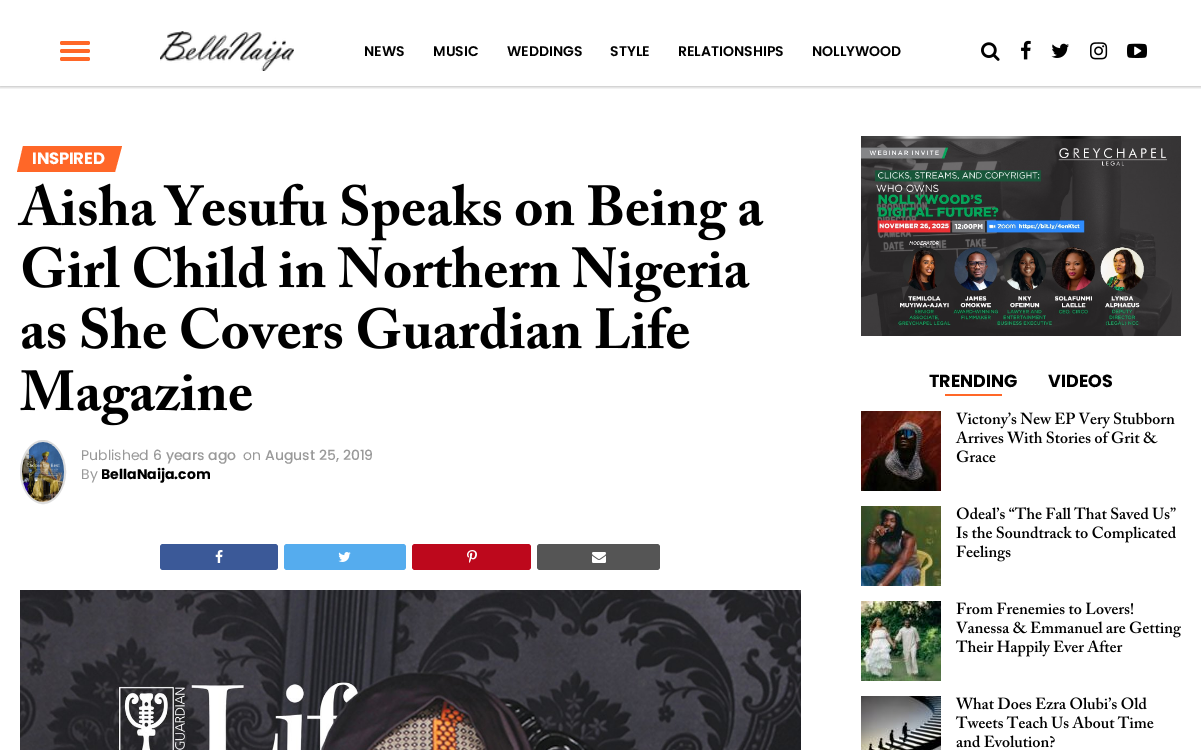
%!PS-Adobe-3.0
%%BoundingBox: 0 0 1201 750
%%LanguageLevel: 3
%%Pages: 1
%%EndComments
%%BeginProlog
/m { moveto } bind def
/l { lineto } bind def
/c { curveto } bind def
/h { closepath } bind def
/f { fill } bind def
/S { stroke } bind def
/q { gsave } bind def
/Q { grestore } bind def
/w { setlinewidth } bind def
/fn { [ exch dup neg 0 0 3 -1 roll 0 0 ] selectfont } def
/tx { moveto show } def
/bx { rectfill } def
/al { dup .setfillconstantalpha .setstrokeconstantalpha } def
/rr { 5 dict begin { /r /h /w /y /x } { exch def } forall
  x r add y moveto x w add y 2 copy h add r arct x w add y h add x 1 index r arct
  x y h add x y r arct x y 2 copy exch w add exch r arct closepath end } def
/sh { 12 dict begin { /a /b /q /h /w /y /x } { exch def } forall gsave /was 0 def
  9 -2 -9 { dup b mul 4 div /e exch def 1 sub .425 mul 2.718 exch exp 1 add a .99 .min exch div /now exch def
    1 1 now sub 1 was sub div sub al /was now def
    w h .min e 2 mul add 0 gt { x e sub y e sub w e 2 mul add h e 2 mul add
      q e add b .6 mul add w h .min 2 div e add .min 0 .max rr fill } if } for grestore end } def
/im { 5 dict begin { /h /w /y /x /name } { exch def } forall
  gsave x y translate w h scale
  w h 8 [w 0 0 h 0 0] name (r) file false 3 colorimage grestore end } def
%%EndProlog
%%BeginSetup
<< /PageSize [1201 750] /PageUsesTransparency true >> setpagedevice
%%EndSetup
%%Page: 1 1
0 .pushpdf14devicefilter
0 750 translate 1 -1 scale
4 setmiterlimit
1 setgray
0 0 1201 750 bx
q
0 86 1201 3 rectclip
0 setgray
0 17 1201 70 0 1.5 0.25 sh
Q
1 0.404 0.157 setrgbcolor
60 41 30 4 2 rr f
60 49 30 4 2 rr f
60 57 30 4 2 rr f
(image0.raw) 160 31 134 40 im
/Poppins-SemiBold 14 fn
0 setgray
(NEWS) 364 56 tx
(MUSIC) 433 56 tx
(WEDDINGS) 507 56 tx
(STYLE) 610 56 tx
(RELATIONSHIPS) 678 56 tx
(NOLLYWOOD) 812 56 tx
(image1.raw) 981 42 19 19 im
(image2.raw) 1021 40 10 20 im
(image3.raw) 1051 43 18 15 im
(image4.raw) 1090 42 18 18 im
(image5.raw) 1127 43 20 15 im
1 0.404 0.157 setrgbcolor
23 146 m 122 146 l 115 172 l 17 172 l h f
/Poppins-Bold 16.5 fn
1 setgray
32 164 m -0.25 0 (INSPIRED) ashow
(image6.raw) 17 183 747 58 im
(image7.raw) 22 245 728 58 im
(image8.raw) 21 306 669 43 im
(image9.raw) 20 370 233 56 im
0.867 setgray
2 w
43 441 m 55 441 65 455 65 472 c 65 489 55 503 43 503 c 31 503 21 489 21 472 c 21 455 31 441 43 441 c h S
(image10.raw) 22 442 42 60 im
/Poppins-Regular 14 fn
0.6 setgray
(Published) 81 460 tx
/Poppins-Medium 14 fn
(6 years ago) 153 460 tx
/Poppins-Regular 14 fn
(on) 243 460 tx
/Poppins-Medium 14 fn
(August 25, 2019) 265 460 tx
/Poppins-Regular 14 fn
(By) 81 479 tx
/Poppins-Bold 14 fn
0 setgray
(BellaNaija.com) 101 479 tx
0.231 0.349 0.596 setrgbcolor
160 544 118 26 3 rr f
(image11.raw) 215 550 8 13 im
0.333 0.675 0.933 setrgbcolor
284 544 122 26 3 rr f
(image12.raw) 338 552 13 10 im
0.741 0.031 0.11 setrgbcolor
412 544 119 26 3 rr f
(image13.raw) 467 550 10 13 im
0.333 setgray
537 544 123 26 3 rr f
(image14.raw) 592 552 14 11 im
(image15.raw) 20 590 781 160 im
(image16.raw) 861 136 320 200 im
/Poppins-Bold 17.5 fn
0 setgray
(TRENDING) 929 387 tx
1 0.404 0.157 setrgbcolor
945 394 57 2 bx
0 setgray
(VIDEOS) 1048 387 tx
(image17.raw) 861 411 80 80 im
(image18.raw) 956 412 219 17 im
(image19.raw) 955 431 203 13 im
(image20.raw) 956 450 40 13 im
(image21.raw) 861 506 80 80 im
(image22.raw) 956 507 220 13 im
(image23.raw) 956 526 220 17 im
(image24.raw) 956 545 55 17 im
(image25.raw) 861 601 80 80 im
(image26.raw) 956 602 178 13 im
(image27.raw) 956 621 225 17 im
(image28.raw) 955 640 168 17 im
(image29.raw) 861 696 80 54 im
(image30.raw) 955 697 192 13 im
(image31.raw) 955 716 199 13 im
(image32.raw) 956 735 99 13 im
.poppdf14devicefilter showpage
%%EOF
